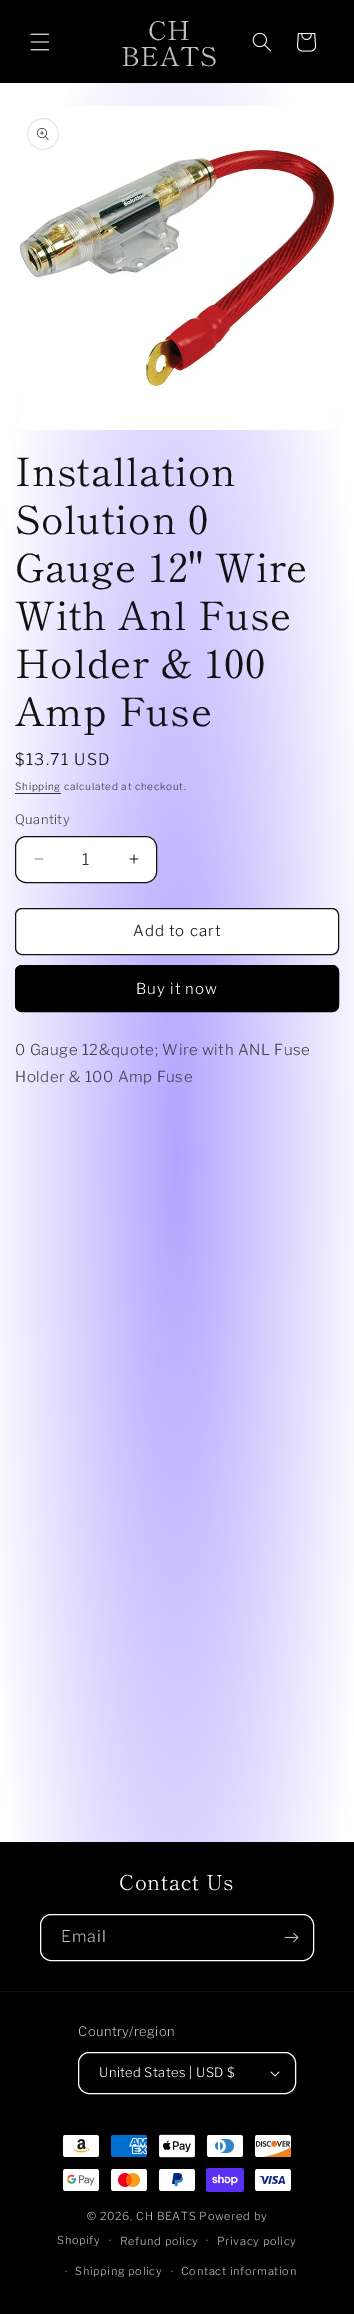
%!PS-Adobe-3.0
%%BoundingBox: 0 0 354 2314
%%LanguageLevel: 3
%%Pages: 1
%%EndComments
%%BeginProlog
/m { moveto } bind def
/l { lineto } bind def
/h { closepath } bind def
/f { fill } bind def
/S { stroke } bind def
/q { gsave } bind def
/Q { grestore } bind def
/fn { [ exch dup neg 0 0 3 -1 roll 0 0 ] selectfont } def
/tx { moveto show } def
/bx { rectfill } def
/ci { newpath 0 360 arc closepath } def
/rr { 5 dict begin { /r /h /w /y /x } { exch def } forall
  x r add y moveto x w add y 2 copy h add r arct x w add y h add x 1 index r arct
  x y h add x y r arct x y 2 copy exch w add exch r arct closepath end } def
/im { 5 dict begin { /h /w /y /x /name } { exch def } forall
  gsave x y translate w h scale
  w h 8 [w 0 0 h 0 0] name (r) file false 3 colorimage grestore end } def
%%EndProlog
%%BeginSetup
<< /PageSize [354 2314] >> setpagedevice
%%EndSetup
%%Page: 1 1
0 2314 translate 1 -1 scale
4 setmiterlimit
1 setgray
0 0 354 2314 bx
q 0 83 m 354 83 l 354 1842 l 0 1842 l h clip newpath 177 1157 translate 250 1636 scale
<< /ShadingType 3 /ColorSpace /DeviceRGB /Coords [0 0 0 0 0 1] /Extend [true true] /Function << /FunctionType 3 /Domain [0 1] /Functions [<< /FunctionType 2 /Domain [0 1] /C0 [0.702 0.643 1] /C1 [1 1 1] /N 1 >> << /FunctionType 2 /Domain [0 1] /C0 [1 1 1] /C1 [1 1 1] /N 1 >> << /FunctionType 2 /Domain [0 1] /C0 [1 1 1] /C1 [1 1 1] /N 1 >>] /Bounds [0.79 0.97] /Encode [0 1 0 1 0 1] >> >> shfill Q
q 15 793 m 61 793 l 61 794 l 15 794 l h clip newpath 177 1157 translate 250 1636 scale
<< /ShadingType 3 /ColorSpace /DeviceRGB /Coords [0 0 0 0 0 1] /Extend [true true] /Function << /FunctionType 3 /Domain [0 1] /Functions [<< /FunctionType 2 /Domain [0 1] /C0 [0.165 0.157 0.212] /C1 [0.212 0.212 0.212] /N 1 >> << /FunctionType 2 /Domain [0 1] /C0 [0.212 0.212 0.212] /C1 [0.212 0.212 0.212] /N 1 >> << /FunctionType 2 /Domain [0 1] /C0 [0.212 0.212 0.212] /C1 [0.212 0.212 0.212] /N 1 >>] /Bounds [0.79 0.97] /Encode [0 1 0 1 0 1] >> >> shfill Q
0 setgray
0 0 354 83 bx
(image0.raw) 30 33 20 18 im
/ShipporiMincho-Regular 26 fn
0.749 setgray
148 40 m 0.75 0 (CH) ashow
121 66 m 0.75 0 (BEATS) ashow
(image1.raw) 252 32 19 20 im
(image2.raw) 297 33 20 19 im
(image3.raw) 19 106 316 324 im
0.906 setgray
43 134 15.5 ci S
(image4.raw) 37 128 12 12 im
/ShipporiMincho-Regular 39 fn
0.071 setgray
15 486 m 0.75 0 (Installation) ashow
15 534 m 0.75 0 (Solution 0) ashow
15 582 m 0.75 0 (Gauge 12" Wire) ashow
15 630 m 0.75 0 (With Anl Fuse) ashow
15 678 m 0.75 0 (Holder & 100) ashow
15 726 m 0.75 0 (Amp Fuse) ashow
/LibreFranklin-Light 16 fn
15 765 m 1.25 0 ($13.71 USD) ashow
/LibreFranklin-Light 10 fn
0.2 0.196 0.212 setrgbcolor
15 790 m 0.7 0 (Shipping) ashow
0.259 0.251 0.302 setrgbcolor
64 790 m 0.7 0 (calculated at checkout.) ashow
/LibreFranklin-Light 13 fn
0.282 0.278 0.302 setrgbcolor
15 824 m 0.4 0 (Quantity) ashow
1 setgray
15 836 142 47 11 rr f
(image5.raw) 34 858 10 2 im
(image6.raw) 129 854 10 10 im
0.071 setgray
15.5 836.5 141 46 10.5 rr S
/LibreFranklin-Light 16 fn
0.2 0.196 0.212 setrgbcolor
(1) 82 865 tx
1 setgray
15 908 324 47 7 rr f
15.5 908.5 323 46 6.5 rr S
0.071 setgray
15.5 908.5 323 46 6.5 rr S
/LibreFranklin-Light 15 fn
133 936 m 1 0 (Add to cart) ashow
0 setgray
15 965 324 47 7 rr f
15.5 965.5 323 46 6.5 rr S
1 setgray
136 994 m 1 0 (Buy it now) ashow
0.259 0.251 0.302 setrgbcolor
15 1055 m 0.6 0 (0 Gauge 12&quote; Wire with ANL Fuse) ashow
15 1082 m 0.6 0 (Holder & 100 Amp Fuse) ashow
0 setgray
0 1842 354 472 bx
/ShipporiMincho-Regular 20.75 fn
1 setgray
119 1890 m 0.75 0 (Contact Us) ashow
40.5 1914.5 273 46 10.5 rr S
/LibreFranklin-Light 16 fn
0.749 setgray
61 1942 m 1 0 (Email) ashow
(image7.raw) 284 1932 15 11 im
0.078 setgray
0 1991 354 1 bx
/LibreFranklin-Light 13 fn
0.749 setgray
78 2036 m 0.4 0 (Country/region) ashow
(image8.raw) 270 2071 10 6 im
1 setgray
78.5 2052.5 217 41 10.5 rr S
99 2077 m 0.4 0 (United States | USD $) ashow
(image9.raw) 63 2135 36 22 im
(image10.raw) 111 2135 36 22 im
(image11.raw) 159 2134 36 24 im
(image12.raw) 207 2135 36 22 im
(image13.raw) 255 2135 37 22 im
(image14.raw) 63 2169 36 22 im
(image15.raw) 111 2169 36 22 im
(image16.raw) 159 2169 36 22 im
(image17.raw) 206 2168 38 24 im
(image18.raw) 255 2169 36 22 im
/LibreFranklin-Light 11 fn
0.749 setgray
87 2220 m 0.7 0 (© 2026, CH BEATS Powered by) ashow
57 2244 m 0.7 0 (Shopify) ashow
/LibreFranklin-Light 10 fn
109 2244 m 0.7 0 (·) ashow
/LibreFranklin-Light 11 fn
120 2245 m 0.7 0 (Refund policy) ashow
/LibreFranklin-Light 10 fn
206 2244 m 0.7 0 (·) ashow
/LibreFranklin-Light 11 fn
217 2245 m 0.7 0 (Privacy policy) ashow
/LibreFranklin-Light 10 fn
65 2275 m 0.7 0 (·) ashow
/LibreFranklin-Light 11 fn
75 2275 m 0.7 0 (Shipping policy) ashow
/LibreFranklin-Light 10 fn
171 2275 m 0.7 0 (·) ashow
/LibreFranklin-Light 11 fn
181 2275 m 0.7 0 (Contact information) ashow
showpage
%%EOF
